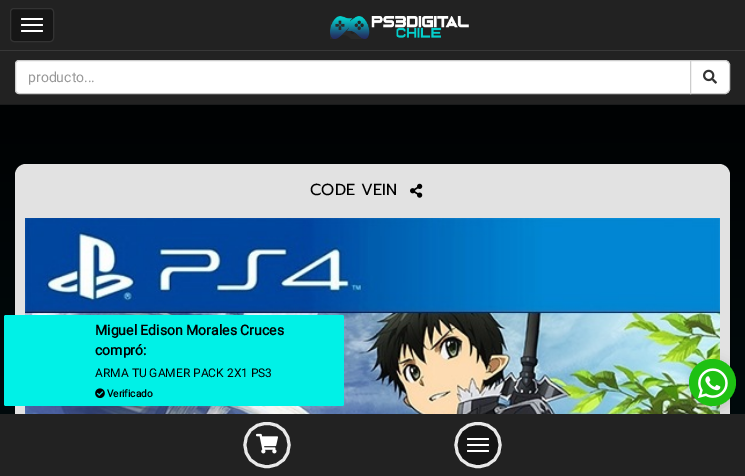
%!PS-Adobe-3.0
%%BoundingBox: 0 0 745 476
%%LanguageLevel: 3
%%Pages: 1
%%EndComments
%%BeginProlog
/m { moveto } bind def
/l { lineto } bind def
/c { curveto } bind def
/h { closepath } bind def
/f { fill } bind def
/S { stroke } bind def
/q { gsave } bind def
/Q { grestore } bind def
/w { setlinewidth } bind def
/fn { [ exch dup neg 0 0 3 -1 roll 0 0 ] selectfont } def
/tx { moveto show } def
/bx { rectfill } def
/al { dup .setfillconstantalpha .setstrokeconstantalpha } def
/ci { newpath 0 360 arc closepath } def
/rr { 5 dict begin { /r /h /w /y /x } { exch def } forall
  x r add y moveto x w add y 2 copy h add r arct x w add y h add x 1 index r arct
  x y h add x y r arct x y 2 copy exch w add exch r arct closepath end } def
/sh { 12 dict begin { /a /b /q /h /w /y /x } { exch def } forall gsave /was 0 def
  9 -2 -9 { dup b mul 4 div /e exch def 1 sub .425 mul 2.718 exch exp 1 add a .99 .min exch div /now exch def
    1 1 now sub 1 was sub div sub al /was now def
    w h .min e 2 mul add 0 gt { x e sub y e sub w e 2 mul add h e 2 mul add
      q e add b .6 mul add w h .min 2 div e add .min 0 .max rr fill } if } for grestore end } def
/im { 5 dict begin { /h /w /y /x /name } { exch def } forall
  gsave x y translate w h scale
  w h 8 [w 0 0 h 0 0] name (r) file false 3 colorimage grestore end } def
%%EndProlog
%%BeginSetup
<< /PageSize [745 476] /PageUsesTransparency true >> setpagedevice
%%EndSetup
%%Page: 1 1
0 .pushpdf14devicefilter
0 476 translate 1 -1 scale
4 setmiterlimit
1 setgray
0 0 745 476 bx
q 0 105 m 745 105 l 745 414 l 0 414 l h clip newpath
<< /ShadingType 2 /ColorSpace /DeviceRGB /Coords [372 0 373 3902] /Extend [true true] /Function << /FunctionType 2 /Domain [0 1] /C0 [0 0 0] /C1 [0 0.357 0.439] /N 1 >> >> shfill Q
0.133 setgray
0 0 745 50 bx
0.086 setgray
10.5 8.5 43 33 3.5 rr q f Q
0.2 setgray
S
1 setgray
21 18 22 2 1 rr f
21 24 22 2 1 rr f
21 30 22 2 1 rr f
(image0.raw) 330 16 139 23 im
0.102 0.106 0.11 setrgbcolor
0 104 745 1 bx
0.133 setgray
0 51 745 53 bx
0.22 setgray
0 50 745 1 bx
1 setgray
19 60.5 m 690.5 60.5 l 690.5 93.5 l 19 93.5 l 17 93.5 15.5 92 15.5 90 c 15.5 64 l 15.5 62 17 60.5 19 60.5 c h q f Q
0.8 setgray
S
/Roboto-Regular 14 fn
0.6 setgray
(producto...) 28 82 tx
1 setgray
690.5 60.5 m 725 60.5 l 727.5 60.5 729.5 62.5 729.5 65 c 729.5 89 l 729.5 91.5 727.5 93.5 725 93.5 c 690.5 93.5 l h q f Q
0.8 setgray
S
(image1.raw) 703 69 14 15 im
0 setgray
15 164 715 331 11 2.5 0.5 sh
0.886 setgray
15 164 715 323 11 rr f
/Prompt-Regular 16 fn
0 setgray
(CODE VEIN) 310 195 tx
(image2.raw) 410 183 13 15 im
(image3.raw) 25 218 695 196 im
0 0.945 0.906 setrgbcolor
4 315 340 91 2 rr f
/Roboto-Bold 14 fn
0 setgray
(Miguel Edison Morales Cruces) 95 335 tx
(compró:) 95 355 tx
/Roboto-Regular 12 fn
(ARMA TU GAMER PACK 2X1 PS3) 95 377 tx
(image4.raw) 95 388 10 11 im
/Roboto-Bold 10 fn
(Verificado) 107 397 tx
0.133 setgray
0 414 745 62 bx
0 setgray
689 362 47 47 23.5 6 0.15 sh
0.118 0.757 0.075 setrgbcolor
712.5 382.5 23.5 ci f
(image5.raw) 698 368 30 31 im
0.914 setgray
3 w
267 423.5 m 296.5 423.5 296.5 466.5 267 466.5 c 237.5 466.5 237.5 423.5 267 423.5 c h S
(image6.raw) 256 433 22 21 im
0.086 setgray
478 422 m 491.5 422 502 432.5 502 445 c 502 457.5 491.5 468 478 468 c 464.5 468 454 457.5 454 445 c 454 432.5 464.5 422 478 422 c h f
0.914 setgray
478 423.5 m 507.5 423.5 507.5 466.5 478 466.5 c 448.5 466.5 448.5 423.5 478 423.5 c h S
1 setgray
467 438 22 2 1 rr f
467 444 22 2 1 rr f
467 450 22 2 1 rr f
.poppdf14devicefilter showpage
%%EOF
